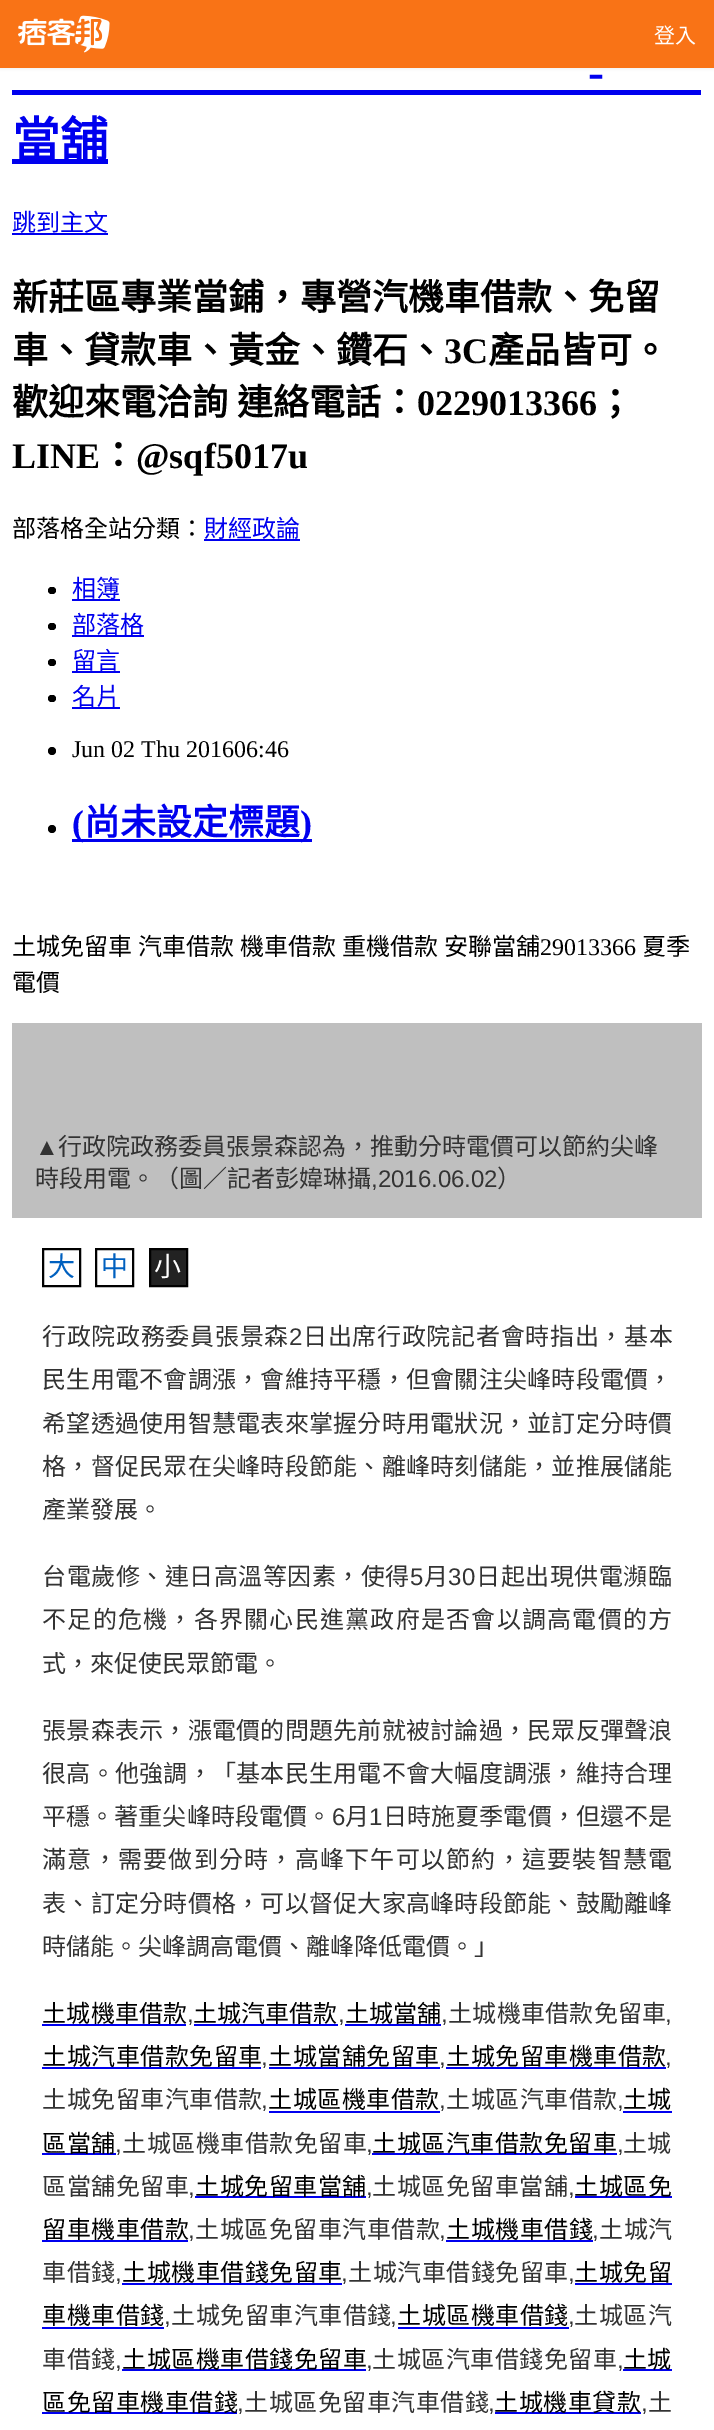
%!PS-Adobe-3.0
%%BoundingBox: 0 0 714 2430
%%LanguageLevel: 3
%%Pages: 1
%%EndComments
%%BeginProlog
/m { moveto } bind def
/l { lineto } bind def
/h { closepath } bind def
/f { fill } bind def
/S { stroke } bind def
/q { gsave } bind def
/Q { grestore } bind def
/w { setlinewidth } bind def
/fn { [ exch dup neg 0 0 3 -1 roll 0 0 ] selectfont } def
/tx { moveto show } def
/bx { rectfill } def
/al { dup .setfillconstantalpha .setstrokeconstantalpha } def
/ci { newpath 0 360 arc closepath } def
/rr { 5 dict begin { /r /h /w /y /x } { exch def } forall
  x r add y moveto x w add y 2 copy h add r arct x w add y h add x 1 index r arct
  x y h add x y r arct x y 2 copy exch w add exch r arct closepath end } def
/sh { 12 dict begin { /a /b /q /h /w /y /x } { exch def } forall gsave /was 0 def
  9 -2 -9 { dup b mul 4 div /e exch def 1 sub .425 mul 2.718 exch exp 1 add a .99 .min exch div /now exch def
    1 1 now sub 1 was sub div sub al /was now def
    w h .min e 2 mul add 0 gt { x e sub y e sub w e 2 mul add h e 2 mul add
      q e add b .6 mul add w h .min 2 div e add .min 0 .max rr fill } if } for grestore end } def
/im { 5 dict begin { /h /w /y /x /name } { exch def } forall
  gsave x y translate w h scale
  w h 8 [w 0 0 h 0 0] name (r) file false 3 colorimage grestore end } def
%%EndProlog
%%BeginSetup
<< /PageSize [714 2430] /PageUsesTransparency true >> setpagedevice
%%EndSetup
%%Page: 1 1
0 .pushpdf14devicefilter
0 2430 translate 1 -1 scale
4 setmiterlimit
1 setgray
0 0 714 2430 bx
0 setgray
0 2 714 67 0 1.5 0.05 sh
0.976 0.451 0.086 setrgbcolor
0 0 714 68 bx
(image0.raw) 18 15 92 38 im
/NotoSansCJKTC-Regular 21 fn
1 setgray
(登入) 654 43 tx
/LiberationSerif-Bold 48 fn
0 0 0.933 setrgbcolor
(-) 588 88 tx
12 90 689 5 bx
12 159 96 5 bx
/NotoSansCJKTC-Bold 48 fn
(當舖) 12 157 tx
/NotoSansCJKTC-Regular 24 fn
(跳到主文) 12 231 tx
12 233 96 2 bx
/NotoSansCJKTC-Bold 36 fn
0 setgray
(新莊區專業當鋪，專營汽機車借款、免留) 12 310 tx
(車、貸款車、黃金、鑽石、) 12 363 tx
/LiberationSerif-Bold 36 fn
(3C) 444 363 tx
/NotoSansCJKTC-Bold 36 fn
(產品皆可。) 488 363 tx
(歡迎來電洽詢) 12 415 tx
(連絡電話：) 237 415 tx
/LiberationSerif-Bold 36 fn
(0229013366) 417 415 tx
/NotoSansCJKTC-Bold 36 fn
(；) 597 415 tx
/LiberationSerif-Bold 36 fn
(LINE) 12 468 tx
/NotoSansCJKTC-Bold 36 fn
(：) 100 468 tx
/LiberationSerif-Bold 36 fn
(@sqf5017u) 136 468 tx
/NotoSansCJKTC-Regular 24 fn
(部落格全站分類：) 12 537 tx
0 0 0.933 setrgbcolor
(財經政論) 204 537 tx
204 539 96 2 bx
0 setgray
48 587 8 7 3.5 rr f
0 0 0.933 setrgbcolor
(相簿) 72 597 tx
72 599 48 2 bx
0 setgray
48 623 8 7 3.5 rr f
0 0 0.933 setrgbcolor
(部落格) 72 633 tx
72 635 72 2 bx
0 setgray
48 659 8 7 3.5 rr f
0 0 0.933 setrgbcolor
(留言) 72 669 tx
72 671 48 2 bx
0 setgray
48 695 8 7 3.5 rr f
0 0 0.933 setrgbcolor
(名片) 72 705 tx
72 707 48 2 bx
0 setgray
52 751 4 ci f
/LiberationSerif-Regular 24 fn
(Jun 02 Thu 201606:46) 72 757 tx
52 829 4 ci f
0 0 0.933 setrgbcolor
72 839 240 3 bx
/LiberationSerif-Bold 36 fn
(\() 72 835 tx
/NotoSansCJKTC-Bold 36 fn
(尚未設定標題) 84 835 tx
/LiberationSerif-Bold 36 fn
(\)) 300 835 tx
/NotoSansCJKTC-Regular 24 fn
0 setgray
12 955 m 0.5 0 32 (土城免留車 汽車借款 機車借款 重機借款 安聯當舖) widthshow
/LiberationSerif-Regular 24 fn
(29013366) 540 955 tx
/NotoSansCJKTC-Regular 24 fn
(夏季) 642 955 tx
(電價) 12 991 tx
0.749 setgray
12 1023 690 195 bx
/LiberationSans-Regular 24 fn
0.2 setgray
(▲) 35 1155 tx
/NotoSansCJKTC-Regular 24 fn
(行政院政務委員張景森認為，推動分時電價可以節約尖峰) 58 1155 tx
(時段用電。（圖／記者彭媁琳攝) 35 1187 tx
/LiberationSans-Regular 24 fn
(,2016.06.02) 371 1187 tx
/NotoSansCJKTC-Regular 24 fn
(）) 497 1187 tx
0 setgray
2 w
43 1249 37 37 rectstroke
/NotoSansCJKTC-Regular 27 fn
0 0.376 0.749 setrgbcolor
(大) 48 1276 tx
0 setgray
96 1249 37 37 rectstroke
0 0.376 0.749 setrgbcolor
(中) 101 1276 tx
0.133 setgray
150 1249 m 187 1249 l 187 1286 l 150 1286 l h q f Q
0 setgray
S
1 setgray
(小) 154 1276 tx
/NotoSansCJKTC-Regular 24 fn
0.2 setgray
42 1345 m 0.7 0 (行政院政務委員張景森) ashow
/LiberationSans-Regular 24 fn
289 1345 m 0.7 0 (2) ashow
/NotoSansCJKTC-Regular 24 fn
303 1345 m 0.7 0 (日出席行政院記者會時指出，基本) ashow
42 1388 m 0.25 0 (民生用電不會調漲，會維持平穩，但會關注尖峰時段電價，) ashow
42 1432 m 0.25 0 (希望透過使用智慧電表來掌握分時用電狀況，並訂定分時價) ashow
42 1475 m 0.25 0 (格，督促民眾在尖峰時段節能、離峰時刻儲能，並推展儲能) ashow
(產業發展。) 42 1518 tx
42 1585 m 0.5 0 (台電歲修、連日高溫等因素，使得) ashow
/LiberationSans-Regular 24 fn
410 1585 m 0.5 0 (5) ashow
/NotoSansCJKTC-Regular 24 fn
424 1585 m 0.5 0 (月) ashow
/LiberationSans-Regular 24 fn
448 1585 m 0.5 0 (30) ashow
/NotoSansCJKTC-Regular 24 fn
476 1585 m 0.5 0 (日起出現供電瀕臨) ashow
42 1628 m 1.25 0 (不足的危機，各界關心民進黨政府是否會以調高電價的方) ashow
(式，來促使民眾節電。) 42 1672 tx
42 1739 m 0.25 0 (張景森表示，漲電價的問題先前就被討論過，民眾反彈聲浪) ashow
42 1782 m 0.25 0 (很高。他強調，「基本民生用電不會大幅度調漲，維持合理) ashow
42 1825 m 0.1 0 (平穩。著重尖峰時段電價。) ashow
/LiberationSans-Regular 24 fn
332 1825 m 0.1 0 (6) ashow
/NotoSansCJKTC-Regular 24 fn
345 1825 m 0.1 0 (月) ashow
/LiberationSans-Regular 24 fn
369 1825 m 0.1 0 (1) ashow
/NotoSansCJKTC-Regular 24 fn
383 1825 m 0.1 0 (日時施夏季電價，但還不是) ashow
42 1868 m 1.25 0 (滿意，需要做到分時，高峰下午可以節約，這要裝智慧電) ashow
42 1912 m 0.25 0 (表、訂定分時價格，可以督促大家高峰時段節能、鼓勵離峰) ashow
(時儲能。尖峰調高電價、離峰降低電價。」) 42 1955 tx
0 setgray
42 2022 m 0.25 0 (土城機車借款) ashow
0 0 0.933 setrgbcolor
42 2024 144 2 bx
/LiberationSans-Regular 24 fn
0.2 setgray
(,) 187 2022 tx
/NotoSansCJKTC-Regular 24 fn
0 setgray
(土城汽車借款) 193 2022 tx
0 0 0.933 setrgbcolor
194 2024 144 2 bx
/LiberationSans-Regular 24 fn
0.2 setgray
(,) 338 2022 tx
/NotoSansCJKTC-Regular 24 fn
0 setgray
(土城當舖) 345 2022 tx
0 0 0.933 setrgbcolor
345 2024 96 2 bx
/LiberationSans-Regular 24 fn
0.2 setgray
(,) 441 2022 tx
/NotoSansCJKTC-Regular 24 fn
448 2022 m 0.25 0 (土城機車借款免留車) ashow
/LiberationSans-Regular 24 fn
(,) 665 2022 tx
/NotoSansCJKTC-Regular 24 fn
0 setgray
42 2065 m 0.5 0 (土城汽車借款免留車) ashow
0 0 0.933 setrgbcolor
42 2067 219 2 bx
/LiberationSans-Regular 24 fn
0.2 setgray
(,) 261 2065 tx
/NotoSansCJKTC-Regular 24 fn
0 setgray
268 2065 m 0.5 0 (土城當舖免留車) ashow
0 0 0.933 setrgbcolor
269 2067 171 2 bx
/LiberationSans-Regular 24 fn
0.2 setgray
(,) 439 2065 tx
/NotoSansCJKTC-Regular 24 fn
0 setgray
446 2065 m 0.5 0 (土城免留車機車借款) ashow
0 0 0.933 setrgbcolor
446 2067 220 2 bx
/LiberationSans-Regular 24 fn
0.2 setgray
(,) 665 2065 tx
/NotoSansCJKTC-Regular 24 fn
42 2108 m 0.5 0 (土城免留車汽車借款) ashow
/LiberationSans-Regular 24 fn
(,) 261 2108 tx
/NotoSansCJKTC-Regular 24 fn
0 setgray
268 2108 m 0.5 0 (土城區機車借款) ashow
0 0 0.933 setrgbcolor
269 2111 171 2 bx
/LiberationSans-Regular 24 fn
0.2 setgray
(,) 439 2108 tx
/NotoSansCJKTC-Regular 24 fn
446 2108 m 0.5 0 (土城區汽車借款) ashow
/LiberationSans-Regular 24 fn
(,) 617 2108 tx
/NotoSansCJKTC-Regular 24 fn
0 setgray
(土城) 623 2108 tx
0 0 0.933 setrgbcolor
623 2111 49 2 bx
42 2153 74 2 bx
0 setgray
42 2152 m 0.5 0 (區當舖) ashow
/LiberationSans-Regular 24 fn
0.2 setgray
(,) 115 2152 tx
/NotoSansCJKTC-Regular 24 fn
122 2152 m 0.5 0 (土城區機車借款免留車) ashow
/LiberationSans-Regular 24 fn
(,) 366 2152 tx
0 0 0.933 setrgbcolor
372 2153 245 2 bx
/NotoSansCJKTC-Regular 24 fn
0 setgray
372 2152 m 0.5 0 (土城區汽車借款免留車) ashow
/LiberationSans-Regular 24 fn
0.2 setgray
(,) 617 2152 tx
/NotoSansCJKTC-Regular 24 fn
(土城) 623 2152 tx
42 2195 m 0.5 0 (區當舖免留車) ashow
/LiberationSans-Regular 24 fn
(,) 188 2195 tx
0 0 0.933 setrgbcolor
195 2196 171 2 bx
/NotoSansCJKTC-Regular 24 fn
0 setgray
195 2195 m 0.5 0 (土城免留車當舖) ashow
/LiberationSans-Regular 24 fn
0.2 setgray
(,) 366 2195 tx
/NotoSansCJKTC-Regular 24 fn
372 2195 m 0.5 0 (土城區免留車當舖) ashow
/LiberationSans-Regular 24 fn
(,) 568 2195 tx
0 0 0.933 setrgbcolor
575 2196 97 2 bx
/NotoSansCJKTC-Regular 24 fn
0 setgray
574 2195 m 0.5 0 (土城區免) ashow
42 2238 m 0.5 0 (留車機車借款) ashow
0 0 0.933 setrgbcolor
42 2240 146 2 bx
/LiberationSans-Regular 24 fn
0.2 setgray
(,) 188 2238 tx
/NotoSansCJKTC-Regular 24 fn
195 2238 m 0.5 0 (土城區免留車汽車借款) ashow
/LiberationSans-Regular 24 fn
(,) 439 2238 tx
/NotoSansCJKTC-Regular 24 fn
0 setgray
446 2238 m 0.5 0 (土城機車借錢) ashow
0 0 0.933 setrgbcolor
446 2240 147 2 bx
/LiberationSans-Regular 24 fn
0.2 setgray
(,) 592 2238 tx
/NotoSansCJKTC-Regular 24 fn
599 2238 m 0.5 0 (土城汽) ashow
42 2281 m 0.5 0 (車借錢) ashow
/LiberationSans-Regular 24 fn
(,) 115 2281 tx
/NotoSansCJKTC-Regular 24 fn
0 setgray
122 2281 m 0.5 0 (土城機車借錢免留車) ashow
0 0 0.933 setrgbcolor
122 2283 220 2 bx
/LiberationSans-Regular 24 fn
0.2 setgray
(,) 341 2281 tx
/NotoSansCJKTC-Regular 24 fn
348 2281 m 0.5 0 (土城汽車借錢免留車) ashow
/LiberationSans-Regular 24 fn
(,) 568 2281 tx
/NotoSansCJKTC-Regular 24 fn
0 setgray
574 2281 m 0.5 0 (土城免留) ashow
0 0 0.933 setrgbcolor
575 2283 97 2 bx
0 setgray
42 2324 m 0.5 0 (車機車借錢) ashow
0 0 0.933 setrgbcolor
42 2327 122 2 bx
/LiberationSans-Regular 24 fn
0.2 setgray
(,) 164 2324 tx
/NotoSansCJKTC-Regular 24 fn
171 2324 m 0.5 0 (土城免留車汽車借錢) ashow
/LiberationSans-Regular 24 fn
(,) 390 2324 tx
/NotoSansCJKTC-Regular 24 fn
0 setgray
397 2324 m 0.5 0 (土城區機車借錢) ashow
0 0 0.933 setrgbcolor
398 2327 171 2 bx
/LiberationSans-Regular 24 fn
0.2 setgray
(,) 568 2324 tx
/NotoSansCJKTC-Regular 24 fn
574 2324 m 0.5 0 (土城區汽) ashow
42 2368 m 0.5 0 (車借錢) ashow
/LiberationSans-Regular 24 fn
(,) 115 2368 tx
0 0 0.933 setrgbcolor
122 2369 244 2 bx
/NotoSansCJKTC-Regular 24 fn
0 setgray
122 2368 m 0.5 0 (土城區機車借錢免留車) ashow
/LiberationSans-Regular 24 fn
0.2 setgray
(,) 366 2368 tx
/NotoSansCJKTC-Regular 24 fn
372 2368 m 0.5 0 (土城區汽車借錢免留車) ashow
/LiberationSans-Regular 24 fn
(,) 617 2368 tx
0 0 0.933 setrgbcolor
623 2369 49 2 bx
/NotoSansCJKTC-Regular 24 fn
0 setgray
(土城) 623 2368 tx
0 0 0.933 setrgbcolor
42 2412 195 2 bx
0 setgray
42 2411 m 0.5 0 (區免留車機車借錢) ashow
/LiberationSans-Regular 24 fn
0.2 setgray
(,) 237 2411 tx
/NotoSansCJKTC-Regular 24 fn
244 2411 m 0.5 0 (土城區免留車汽車借錢) ashow
/LiberationSans-Regular 24 fn
(,) 488 2411 tx
0 0 0.933 setrgbcolor
495 2412 146 2 bx
/NotoSansCJKTC-Regular 24 fn
0 setgray
494 2411 m 0.5 0 (土城機車貸款) ashow
/LiberationSans-Regular 24 fn
0.2 setgray
(,) 641 2411 tx
/NotoSansCJKTC-Regular 24 fn
(土) 648 2411 tx
.poppdf14devicefilter showpage
%%EOF
